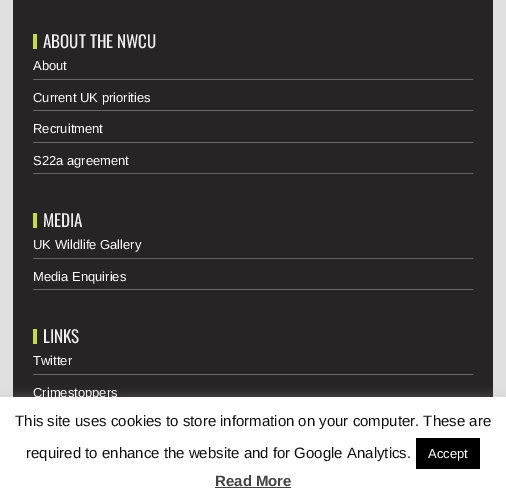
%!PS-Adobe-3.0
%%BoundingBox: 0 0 506 504
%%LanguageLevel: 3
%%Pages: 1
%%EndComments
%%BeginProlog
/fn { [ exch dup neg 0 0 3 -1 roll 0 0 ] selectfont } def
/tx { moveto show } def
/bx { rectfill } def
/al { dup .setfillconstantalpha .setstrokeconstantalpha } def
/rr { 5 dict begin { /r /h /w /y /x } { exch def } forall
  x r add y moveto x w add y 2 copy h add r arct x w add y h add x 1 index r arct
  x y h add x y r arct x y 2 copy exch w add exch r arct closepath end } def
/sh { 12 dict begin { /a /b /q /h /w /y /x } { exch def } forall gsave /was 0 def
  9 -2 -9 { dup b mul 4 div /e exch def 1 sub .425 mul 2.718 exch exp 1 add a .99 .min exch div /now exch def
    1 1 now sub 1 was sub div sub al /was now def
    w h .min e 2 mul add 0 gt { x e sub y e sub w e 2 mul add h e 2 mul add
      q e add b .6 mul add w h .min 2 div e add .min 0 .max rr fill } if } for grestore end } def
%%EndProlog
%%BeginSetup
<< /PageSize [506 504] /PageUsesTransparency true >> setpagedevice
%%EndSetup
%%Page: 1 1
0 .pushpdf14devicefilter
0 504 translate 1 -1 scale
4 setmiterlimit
0.878 setgray
0 0 506 504 bx
0.153 0.141 0.145 setrgbcolor
13 0 480 397 bx
0.796 0.851 0.235 setrgbcolor
33 34 4 15 bx
/Oswald-Regular 17 fn
0.933 setgray
(ABOUT THE NWCU) 43 48 tx
0.4 setgray
33 79 440 1 bx
/LiberationSans-Regular 13 fn
1 setgray
(About) 33 70 tx
0.4 setgray
33 110 440 1 bx
1 setgray
(Current UK priorities) 33 102 tx
0.4 setgray
33 142 440 1 bx
1 setgray
(Recruitment) 33 133 tx
0.4 setgray
33 173 440 1 bx
1 setgray
(S22a agreement) 33 165 tx
0.796 0.851 0.235 setrgbcolor
33 213 4 15 bx
/Oswald-Regular 17 fn
0.933 setgray
(MEDIA) 43 227 tx
0.4 setgray
33 258 440 1 bx
/LiberationSans-Regular 13 fn
1 setgray
(UK Wildlife Gallery) 33 249 tx
0.4 setgray
33 289 440 1 bx
1 setgray
(Media Enquiries) 33 281 tx
0.796 0.851 0.235 setrgbcolor
33 329 4 15 bx
/Oswald-Regular 17 fn
0.933 setgray
(LINKS) 43 343 tx
0.4 setgray
33 374 440 1 bx
/LiberationSans-Regular 13 fn
1 setgray
(Twitter) 33 365 tx
(Crimestoppers) 33 397 tx
0.675 0.671 0.671 setrgbcolor
0 396 506 107 0 5 0.3 sh
1 setgray
0 397 506 107 bx
/LiberationSans-Regular 15 fn
0.063 setgray
(This site uses cookies to store information on your computer. These are) 15 426 tx
(required to enhance the website and for Google Analytics.) 26 458 tx
0 setgray
416 438 64 31 bx
/LiberationSans-Regular 13 fn
1 setgray
(Accept) 428 458 tx
/LiberationSans-Bold 15 fn
0.267 setgray
(Read More) 215 486 tx
215 487 76 1 bx
.poppdf14devicefilter showpage
%%EOF
